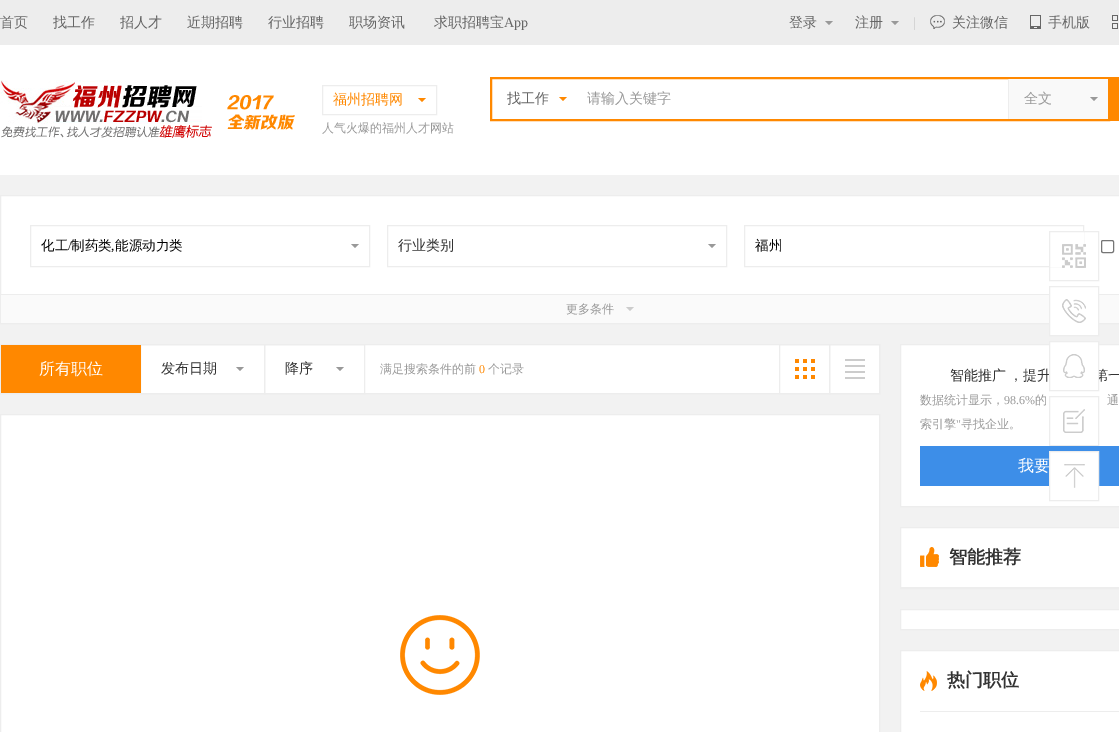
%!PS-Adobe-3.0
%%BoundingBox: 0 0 1119 732
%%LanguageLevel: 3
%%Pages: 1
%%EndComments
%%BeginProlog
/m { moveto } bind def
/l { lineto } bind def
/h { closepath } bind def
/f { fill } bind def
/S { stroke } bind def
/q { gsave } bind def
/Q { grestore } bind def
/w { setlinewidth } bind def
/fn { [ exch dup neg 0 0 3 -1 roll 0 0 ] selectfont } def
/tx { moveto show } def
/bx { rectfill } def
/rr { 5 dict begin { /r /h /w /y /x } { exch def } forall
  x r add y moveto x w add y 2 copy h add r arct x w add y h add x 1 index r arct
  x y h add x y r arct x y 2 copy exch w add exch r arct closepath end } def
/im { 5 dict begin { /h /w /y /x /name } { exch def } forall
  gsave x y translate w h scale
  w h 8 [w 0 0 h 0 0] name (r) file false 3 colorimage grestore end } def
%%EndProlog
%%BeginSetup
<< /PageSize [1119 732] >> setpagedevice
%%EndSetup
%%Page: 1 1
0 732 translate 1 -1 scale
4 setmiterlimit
0.949 setgray
0 0 1119 732 bx
0.929 setgray
0 0 1119 45 bx
/WenQuanYiZenHei-Medium 14 fn
0.4 setgray
(首页) 0 27 tx
(找工作) 53 27 tx
(招人才) 120 27 tx
(近期招聘) 187 27 tx
(行业招聘) 268 27 tx
(职场资讯) 349 27 tx
(求职招聘宝) 434 27 tx
/LiberationSerif-Regular 14 fn
(App) 504 27 tx
/WenQuanYiZenHei-Medium 14 fn
(登录) 789 27 tx
0.6 setgray
825 21 m 833 21 l 829 25 l h f
0.4 setgray
(注册) 855 27 tx
0.6 setgray
891 21 m 899 21 l 895 25 l h f
/LiberationSerif-Regular 14 fn
0.804 setgray
(|) 913 27 tx
(image0.raw) 930 15 15 14 im
/WenQuanYiZenHei-Medium 14 fn
0.4 setgray
(关注微信) 952 27 tx
(image1.raw) 1030 15 11 14 im
(手机版) 1048 27 tx
(image2.raw) 1112 15 6 14 im
1 setgray
0 45 1119 130 bx
(image3.raw) 0 80 295 58 im
0.929 setgray
322.5 85.5 114 29 rectstroke
1 0.533 0 setrgbcolor
(福州招聘网) 333 104 tx
418 98 m 426 98 l 422 102 l h f
/WenQuanYiZenHei-Medium 12 fn
0.6 setgray
(人气火爆的福州人才网站) 322 132 tx
1 0.533 0 setrgbcolor
2 w
491 78 618 42 rectstroke
/WenQuanYiZenHei-Medium 14 fn
0.4 setgray
(找工作) 507 103 tx
1 0.533 0 setrgbcolor
559 97 m 567 97 l 563 101 l h f
0.6 setgray
(请输入关键字) 587 103 tx
0.976 setgray
1009 79 99 40 bx
0.929 setgray
1008 79 1 40 bx
0.6 setgray
(全文) 1024 103 tx
1090 97 m 1098 97 l 1094 101 l h f
1 0.533 0 setrgbcolor
1110 77 9 44 bx
1 setgray
1 196 1118 98 bx
0.929 setgray
1 w
0.5 195.5 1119 128 rectstroke
744.5 225.5 339 41 rectstroke
1 setgray
1050 232 34 35 bx
0.929 setgray
1049.5 231.5 49 49 rectstroke
(image4.raw) 1062 244 24 24 im
1 294 1118 1 bx
0.98 setgray
1 295 1118 28 bx
1 setgray
1050 294 48 41 bx
0.929 setgray
1049.5 286.5 49 49 rectstroke
(image5.raw) 1062 299 24 24 im
1 setgray
900.5 344.5 m 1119.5 344.5 l 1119.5 506.5 l 900.5 506.5 l h q f Q
0.929 setgray
S
0.2 setgray
950 380 m -1 0 32 (智能推广 ，提升) widthshow
1094 380 m -1 0 32 (第一) widthshow
1 setgray
1050 342 48 40 bx
0.929 setgray
1049.5 341.5 49 49 rectstroke
(image6.raw) 1063 354 22 24 im
1049.5 396.5 49 49 rectstroke
(image7.raw) 1063 409 22 24 im
0.239 0.557 0.91 setrgbcolor
920 446 199 40 bx
1 setgray
1050 452 48 34 bx
/WenQuanYiZenHei-Medium 16 fn
(我要) 1018 471 tx
0.929 setgray
1049.5 451.5 49 49 rectstroke
(image8.raw) 1064 464 21 24 im
0.6 setgray
351 244 m 359 244 l 355 248 l h f
0.929 setgray
30.5 225.5 339 41 rectstroke
/WenQuanYiZenHei-Medium 13.5 fn
0 setgray
(化工) 41 250 tx
/LiberationSerif-Regular 13.5 fn
(/) 68 250 tx
/WenQuanYiZenHei-Medium 13.5 fn
(制药类) 71 250 tx
/LiberationSerif-Regular 13.5 fn
(,) 111 250 tx
/WenQuanYiZenHei-Medium 13.5 fn
(能源动力类) 115 250 tx
0.6 setgray
708 244 m 716 244 l 712 248 l h f
0.929 setgray
387.5 225.5 339 41 rectstroke
/WenQuanYiZenHei-Medium 14 fn
0.2 setgray
(行业类别) 398 250 tx
/WenQuanYiZenHei-Medium 13.5 fn
0 setgray
(福州) 755 250 tx
0.463 setgray
1101.5 240.5 12 12 1.5 rr S
/WenQuanYiZenHei-Medium 12 fn
0.6 setgray
(更多条件) 566 313 tx
0.8 setgray
626 307 m 634 307 l 630 311 l h f
1 setgray
141 345 738 48 bx
0.929 setgray
0.5 344.5 879 49 rectstroke
140.5 344.5 124 49 rectstroke
1 0.533 0 setrgbcolor
1 345 140 48 bx
/WenQuanYiZenHei-Medium 16 fn
1 setgray
(所有职位) 39 374 tx
/WenQuanYiZenHei-Medium 14 fn
0.2 setgray
(发布日期) 161 373 tx
0.6 setgray
236 367 m 244 367 l 240 371 l h f
0.929 setgray
264.5 344.5 100 49 rectstroke
0.2 setgray
(降序) 285 373 tx
0.6 setgray
336 367 m 344 367 l 340 371 l h f
/WenQuanYiZenHei-Medium 12 fn
(满足搜索条件的前) 380 373 tx
/LiberationSerif-Regular 12 fn
1 0.533 0 setrgbcolor
(0) 479 373 tx
/WenQuanYiZenHei-Medium 12 fn
0.6 setgray
(个记录) 488 373 tx
0.929 setgray
829.5 344.5 50 49 rectstroke
779.5 344.5 50 49 rectstroke
(image9.raw) 795 359 20 20 im
(image10.raw) 845 359 20 20 im
1 setgray
0.5 414.5 m 879.5 414.5 l 879.5 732.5 l 0.5 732.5 l h q f Q
0.929 setgray
S
(image11.raw) 400 615 80 80 im
0.6 setgray
(数据统计显示，) 920 404 tx
/LiberationSerif-Regular 12 fn
(98.6%) 1004 404 tx
/WenQuanYiZenHei-Medium 12 fn
(的) 1035 404 tx
(通) 1107 404 tx
(索引擎) 920 428 tx
/LiberationSerif-Regular 12 fn
(") 956 428 tx
/WenQuanYiZenHei-Medium 12 fn
(寻找企业。) 961 428 tx
1 setgray
901 528 218 59 bx
0.929 setgray
900.5 527.5 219 61 rectstroke
(image12.raw) 920 547 19 20 im
/WenQuanYiZenHei-Bold 18 fn
0.2 setgray
(智能推荐) 949 563 tx
0.929 setgray
901 587 218 1 bx
1 setgray
900.5 609.5 m 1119.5 609.5 l 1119.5 629.5 l 900.5 629.5 l h q f Q
0.929 setgray
S
1 setgray
900.5 650.5 m 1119.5 650.5 l 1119.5 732.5 l 900.5 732.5 l h q f Q
0.929 setgray
S
(image13.raw) 920 671 17 20 im
0.2 setgray
(热门职位) 947 686 tx
0.929 setgray
920 711 199 1 bx
showpage
%%EOF
